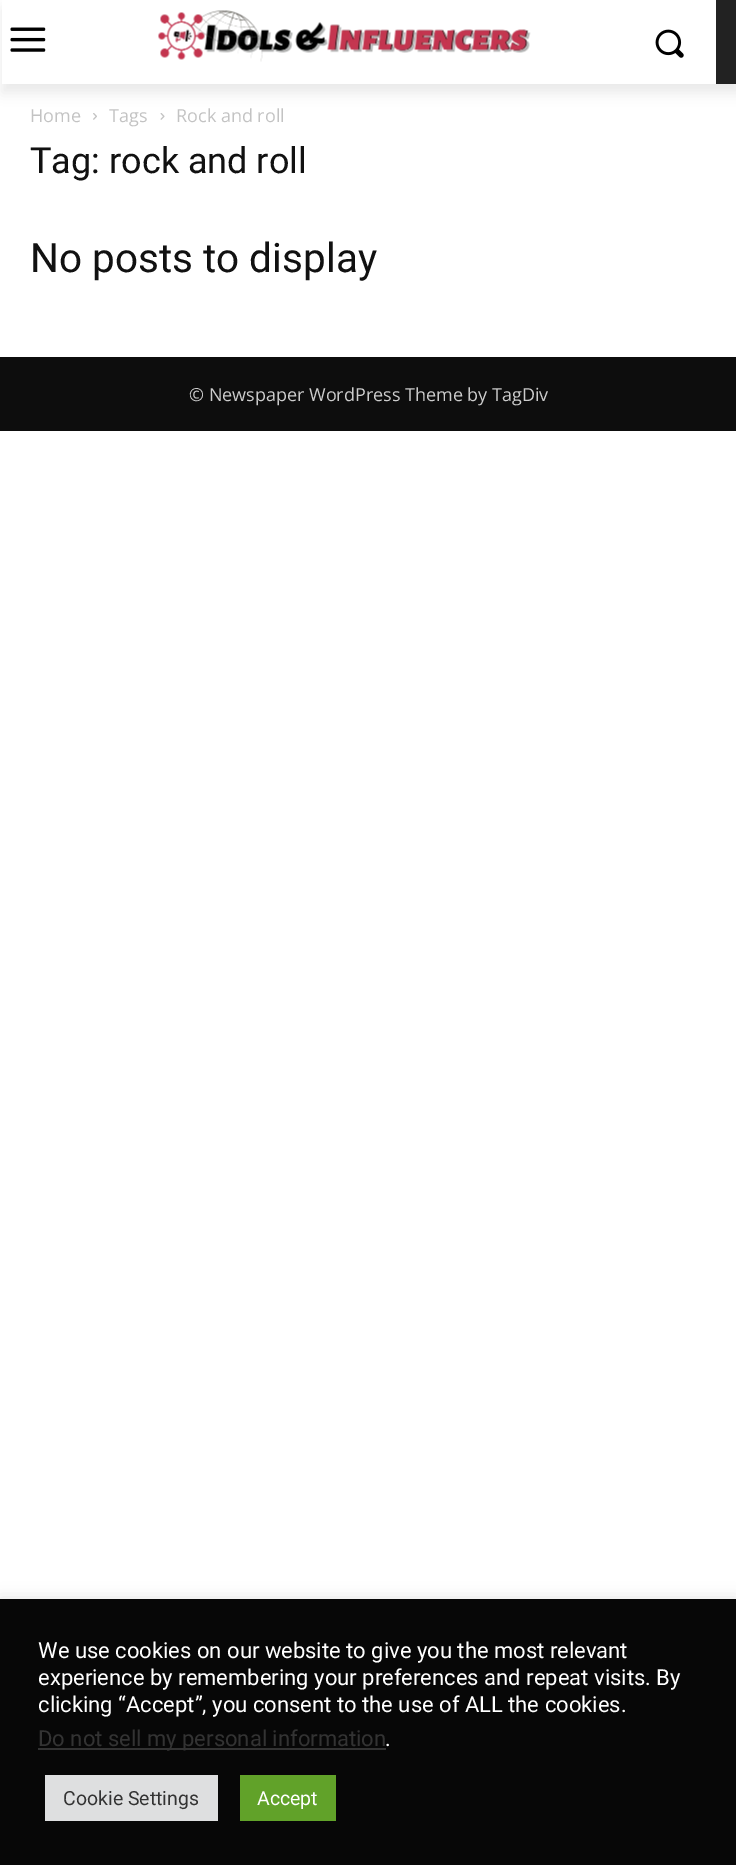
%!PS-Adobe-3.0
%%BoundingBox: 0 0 736 1865
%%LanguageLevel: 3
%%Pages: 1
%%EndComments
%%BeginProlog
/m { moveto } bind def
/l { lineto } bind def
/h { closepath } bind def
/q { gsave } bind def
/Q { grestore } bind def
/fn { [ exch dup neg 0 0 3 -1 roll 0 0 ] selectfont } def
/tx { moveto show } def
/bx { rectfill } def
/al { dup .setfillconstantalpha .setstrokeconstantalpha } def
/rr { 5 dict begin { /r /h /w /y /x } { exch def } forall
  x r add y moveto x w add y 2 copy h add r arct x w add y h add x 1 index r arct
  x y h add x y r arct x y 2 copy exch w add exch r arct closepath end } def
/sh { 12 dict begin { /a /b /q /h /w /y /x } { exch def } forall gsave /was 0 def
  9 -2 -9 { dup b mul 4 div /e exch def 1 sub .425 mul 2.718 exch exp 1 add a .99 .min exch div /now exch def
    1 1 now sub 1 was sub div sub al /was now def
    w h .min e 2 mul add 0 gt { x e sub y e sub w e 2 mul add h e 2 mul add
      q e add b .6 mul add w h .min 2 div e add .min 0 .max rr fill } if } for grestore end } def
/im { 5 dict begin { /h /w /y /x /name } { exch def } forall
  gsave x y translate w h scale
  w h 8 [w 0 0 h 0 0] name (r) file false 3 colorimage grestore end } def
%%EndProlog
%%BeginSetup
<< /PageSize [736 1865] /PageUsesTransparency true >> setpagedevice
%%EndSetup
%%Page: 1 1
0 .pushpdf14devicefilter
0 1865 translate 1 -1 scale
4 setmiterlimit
1 setgray
0 0 736 1865 bx
(image0.raw) 10 27 36 25 im
(image1.raw) 158 10 373 52 im
(image2.raw) 655 29 29 29 im
0.133 setgray
716 0 20 84 bx
q
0 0 m 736 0 l 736 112 l 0 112 l h 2 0 m 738 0 l 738 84 l 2 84 l h eoclip newpath
0 setgray
2 9 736 84 0 6 0.08 sh
Q
/OpenSans-Regular 18 fn
0.765 setgray
(Home) 30 122 tx
(image3.raw) 93 113 4 7 im
(Tags) 109 122 tx
(image4.raw) 160 113 5 7 im
(Rock and roll) 176 122 tx
/Roboto-Regular 36 fn
0.067 setgray
(Tag: rock and roll) 30 173 tx
/Roboto-Regular 40.5 fn
(No posts to display) 30 272 tx
0.051 setgray
0 357 736 74 bx
/OpenSans-Regular 18 fn
0.8 setgray
(© Newspaper WordPress Theme by TagDiv) 189 401 tx
0.675 0.671 0.671 setrgbcolor
0 1598 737 267 0 7.5 0.3 sh
0.027 setgray
0 1599 736 266 bx
/Roboto-Regular 22 fn
1 setgray
(We use cookies on our website to give you the most relevant) 38 1658 tx
(experience by remembering your preferences and repeat visits. By) 38 1685 tx
(clicking “Accept”, you consent to the use of ALL the cookies.) 38 1712 tx
0.2 setgray
38 1748 348 2 bx
(Do not sell my personal information) 38 1746 tx
1 setgray
(.) 385 1746 tx
0.871 0.875 0.878 setrgbcolor
45 1775 173 46 bx
/Roboto-Regular 19.5 fn
0.2 setgray
(Cookie Settings) 63 1805 tx
0.38 0.635 0.161 setrgbcolor
240 1775 96 46 bx
1 setgray
(Accept) 257 1805 tx
.poppdf14devicefilter showpage
%%EOF
